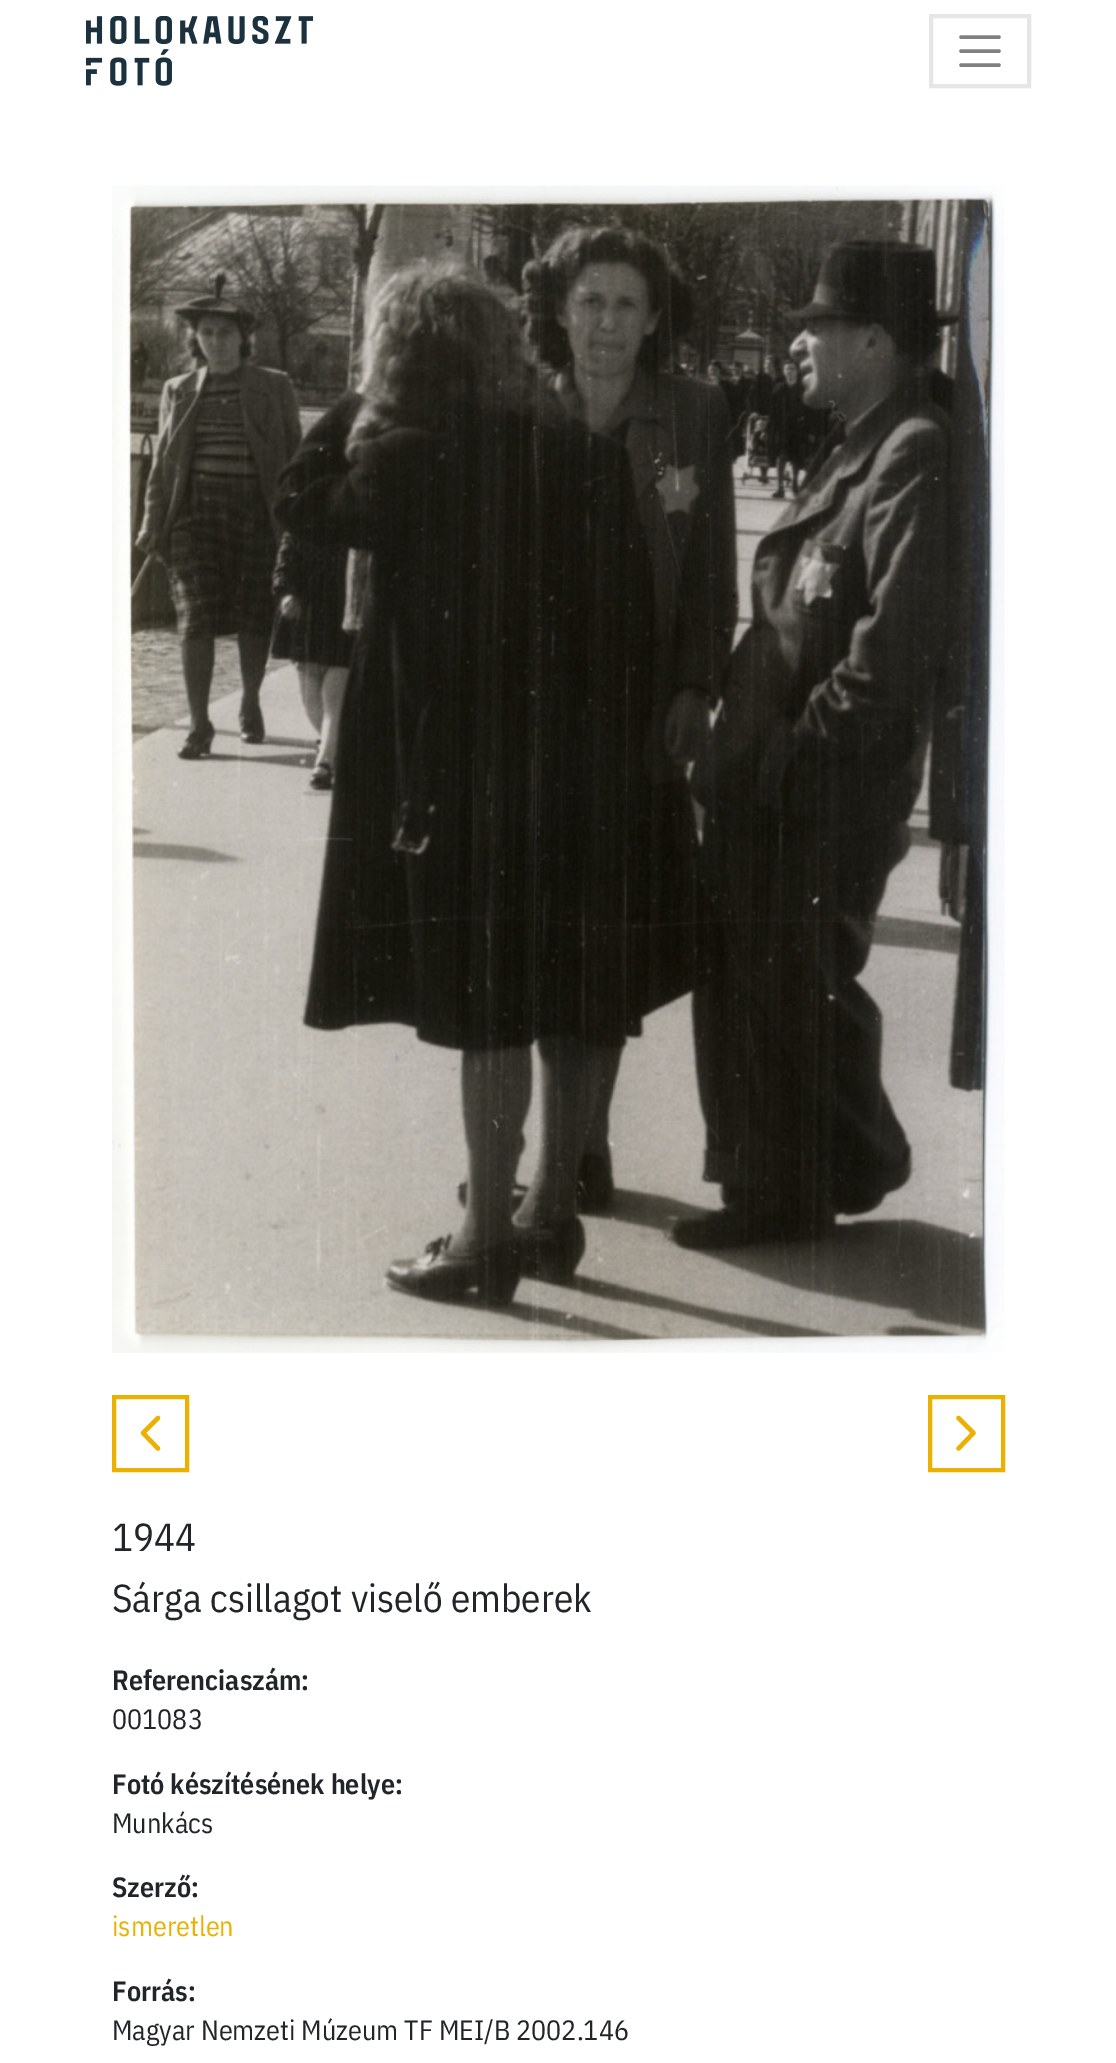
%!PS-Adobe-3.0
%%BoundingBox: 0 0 1116 2063
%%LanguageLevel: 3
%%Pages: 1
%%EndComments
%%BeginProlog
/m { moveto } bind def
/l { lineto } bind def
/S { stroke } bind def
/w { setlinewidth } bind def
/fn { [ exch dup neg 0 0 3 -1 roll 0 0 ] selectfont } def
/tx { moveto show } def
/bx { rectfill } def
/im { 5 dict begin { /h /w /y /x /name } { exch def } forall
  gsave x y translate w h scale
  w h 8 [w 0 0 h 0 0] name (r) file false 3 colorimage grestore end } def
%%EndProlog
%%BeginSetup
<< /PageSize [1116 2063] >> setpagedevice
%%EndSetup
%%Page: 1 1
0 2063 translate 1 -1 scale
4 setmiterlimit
1 setgray
0 0 1116 2063 bx
(image0.raw) 86 16 227 70 im
0.902 setgray
4 w
931 16 98 70 rectstroke
0.502 setgray
3.5 w
1 setlinecap
961 37 m 999 37 l 961 51 m 999 51 l 961 65 m 999 65 l S
(image1.raw) 112 185 893 1168 im
0.922 0.694 0 setrgbcolor
4 w
0 setlinecap
114 1397 73 73 rectstroke
4.4 w
1 setlinecap
1 setlinejoin
158 1418 m 143 1433 l 158 1448.5 l S
4 w
0 setlinecap
0 setlinejoin
930 1397 73 73 rectstroke
4.4 w
1 setlinecap
1 setlinejoin
958.5 1418 m 973.5 1433 l 958.5 1448.5 l S
/IBMPlexSansCondensed-Regular 39 fn
0.129 0.145 0.161 setrgbcolor
(1944) 112 1551 tx
(Sárga csillagot viselő emberek) 112 1612 tx
/IBMPlexSansCondensed-SemiBold 28 fn
(Referenciaszám:) 112 1690 tx
/IBMPlexSansCondensed-Regular 28 fn
(001083) 112 1729 tx
/IBMPlexSansCondensed-SemiBold 28 fn
(Fotó készítésének helye:) 112 1794 tx
/IBMPlexSansCondensed-Regular 28 fn
(Munkács) 112 1833 tx
/IBMPlexSansCondensed-SemiBold 28 fn
(Szerző:) 112 1897 tx
/IBMPlexSansCondensed-Regular 28 fn
0.922 0.694 0 setrgbcolor
(ismeretlen) 112 1936 tx
/IBMPlexSansCondensed-SemiBold 28 fn
0.129 0.145 0.161 setrgbcolor
(Forrás:) 112 2001 tx
/IBMPlexSansCondensed-Regular 28 fn
(Magyar Nemzeti Múzeum TF MEI/B 2002.146) 112 2040 tx
showpage
%%EOF
